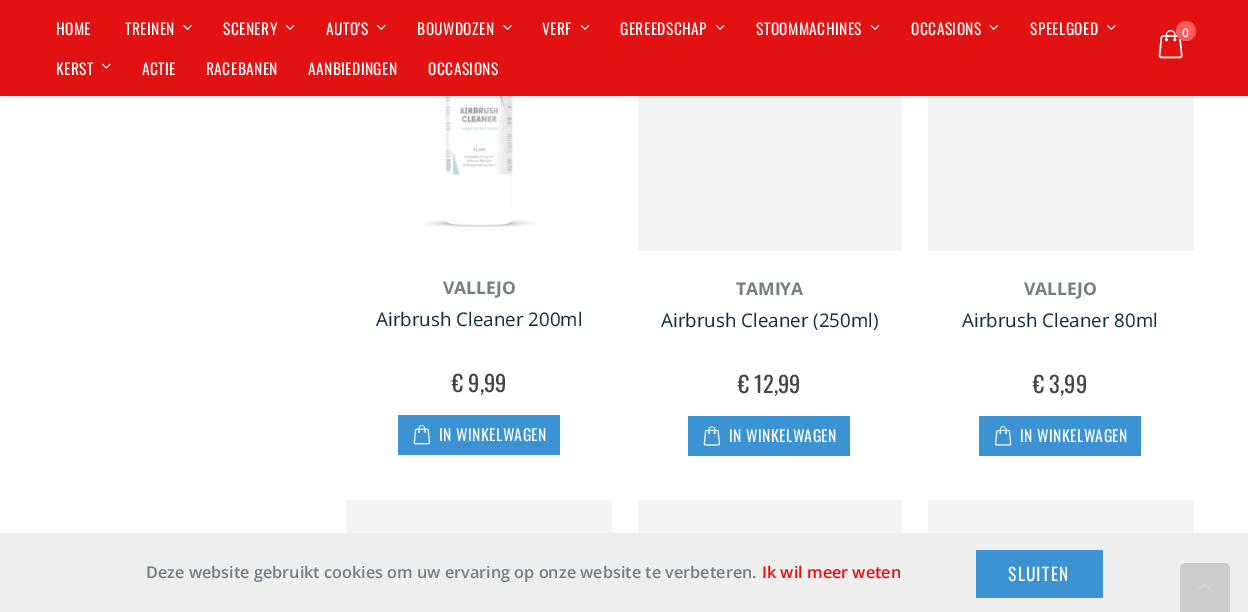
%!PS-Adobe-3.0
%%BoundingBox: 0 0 1248 612
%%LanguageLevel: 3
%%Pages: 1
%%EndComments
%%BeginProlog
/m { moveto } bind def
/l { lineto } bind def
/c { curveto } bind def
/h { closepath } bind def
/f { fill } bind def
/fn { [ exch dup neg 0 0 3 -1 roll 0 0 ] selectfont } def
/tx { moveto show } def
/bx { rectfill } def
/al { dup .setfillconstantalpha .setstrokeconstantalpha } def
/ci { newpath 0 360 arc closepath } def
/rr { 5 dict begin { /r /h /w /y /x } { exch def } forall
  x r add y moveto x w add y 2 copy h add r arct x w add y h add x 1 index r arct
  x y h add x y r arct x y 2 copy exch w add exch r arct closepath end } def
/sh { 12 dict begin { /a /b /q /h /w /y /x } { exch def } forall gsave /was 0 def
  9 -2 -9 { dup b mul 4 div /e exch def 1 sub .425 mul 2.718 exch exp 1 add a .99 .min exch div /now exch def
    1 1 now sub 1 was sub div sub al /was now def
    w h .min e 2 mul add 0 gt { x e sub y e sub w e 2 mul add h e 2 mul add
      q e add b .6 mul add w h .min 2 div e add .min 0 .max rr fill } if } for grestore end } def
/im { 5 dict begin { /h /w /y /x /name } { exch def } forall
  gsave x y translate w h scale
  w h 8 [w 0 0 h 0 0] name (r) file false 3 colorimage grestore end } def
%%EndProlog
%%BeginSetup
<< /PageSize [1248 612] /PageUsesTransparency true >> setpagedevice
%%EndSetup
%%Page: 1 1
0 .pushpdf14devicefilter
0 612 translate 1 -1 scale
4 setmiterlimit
1 setgray
0 0 1248 612 bx
(image6.raw) 422 96 180 132 im
0.957 setgray
638 96 264 155 bx
928 96 266 155 bx
0 setgray
0 1 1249 97 0 1 0.1 sh
0.886 0.067 0.071 setrgbcolor
0 0 1248 96 bx
/Oswald-Regular 15.5 fn
1 setgray
56 35 m 0.4 0 (HOME) ashow
125 35 m 0.4 0 (TREINEN) ashow
(image0.raw) 183 25 9 5 im
223 35 m 0.4 0 (SCENERY) ashow
(image1.raw) 285 25 10 5 im
326 35 m 0.4 0 (AUTO'S) ashow
(image2.raw) 377 25 9 5 im
417 35 m 0.4 0 (BOUWDOZEN) ashow
(image0.raw) 503 25 9 5 im
542 35 m 0.4 0 (VERF) ashow
(image1.raw) 580 25 10 5 im
620 35 m 0.4 0 (GEREEDSCHAP) ashow
(image1.raw) 715 25 10 5 im
756 35 m 0.4 0 (STOOMMACHINES) ashow
(image1.raw) 870 25 10 5 im
911 35 m 0.4 0 (OCCASIONS) ashow
(image3.raw) 989 25 10 5 im
1030 35 m 0.4 0 (SPEELGOED) ashow
(image2.raw) 1107 25 9 5 im
56 75 m 0.4 0 (KERST) ashow
(image4.raw) 102 63 9 6 im
142 75 m 0.4 0 (ACTIE) ashow
206 75 m 0.4 0 (RACEBANEN) ashow
308 75 m 0.4 0 (AANBIEDINGEN) ashow
428 75 m 0.4 0 (OCCASIONS) ashow
(image5.raw) 1158 29 25 30 im
1 0.357 0.357 setrgbcolor
1186 31 10 ci f
/OpenSans-SemiBold 12 fn
1 setgray
(0) 1182 37 tx
/OpenSans-Bold 17.5 fn
0.463 0.498 0.518 setrgbcolor
(VALLEJO) 443 294 tx
/OpenSans-Regular 18.75 fn
0.055 0.184 0.251 setrgbcolor
(Airbrush Cleaner 200ml) 376 326 tx
/Oswald-Regular 22.5 fn
0.267 setgray
(€ 9,99) 452 392 tx
0.235 0.576 0.827 setrgbcolor
398 415 162 40 bx
(image7.raw) 413 425 17 20 im
/Oswald-Regular 15.75 fn
1 setgray
439 441 m 0.4 0 (IN WINKELWAGEN) ashow
/OpenSans-Bold 17.5 fn
0.463 0.498 0.518 setrgbcolor
(TAMIYA) 736 295 tx
/OpenSans-Regular 18.75 fn
0.055 0.184 0.251 setrgbcolor
(Airbrush Cleaner \(250ml\)) 661 327 tx
/Oswald-Regular 22.5 fn
0.267 setgray
(€ 12,99) 738 393 tx
0.235 0.576 0.827 setrgbcolor
688 416 162 40 bx
(image8.raw) 703 426 17 20 im
/Oswald-Regular 15.75 fn
1 setgray
729 442 m 0.4 0 (IN WINKELWAGEN) ashow
/OpenSans-Bold 17.5 fn
0.463 0.498 0.518 setrgbcolor
(VALLEJO) 1024 295 tx
/OpenSans-Regular 18.75 fn
0.055 0.184 0.251 setrgbcolor
(Airbrush Cleaner 80ml) 962 327 tx
/Oswald-Regular 22.5 fn
0.267 setgray
(€ 3,99) 1033 393 tx
0.235 0.576 0.827 setrgbcolor
979 416 162 40 bx
(image9.raw) 995 426 17 20 im
/Oswald-Regular 15.75 fn
1 setgray
1020 442 m 0.4 0 (IN WINKELWAGEN) ashow
0.957 setgray
346 500 266 33 bx
638 500 264 33 bx
928 500 266 33 bx
0.933 setgray
0 533 1248 79 bx
0.8 setgray
1186 563 m 1224 563 l 1227.5 563 1230 565.5 1230 569 c 1230 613 l 1180 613 l 1180 569 l 1180 565.5 1182.5 563 1186 563 c h f
(image10.raw) 1199 583 11 7 im
/OpenSans-SemiBold 16.25 fn
0.463 0.498 0.518 setrgbcolor
(Deze website gebruikt cookies om uw ervaring op onze website te verbeteren.) 146 578 tx
0.886 0.067 0.071 setrgbcolor
(Ik wil meer weten) 762 578 tx
0.235 0.576 0.827 setrgbcolor
976 550 127 48 bx
/Oswald-Regular 17.5 fn
1 setgray
1008 581 m 1.25 0 (SLUITEN) ashow
.poppdf14devicefilter showpage
%%EOF
